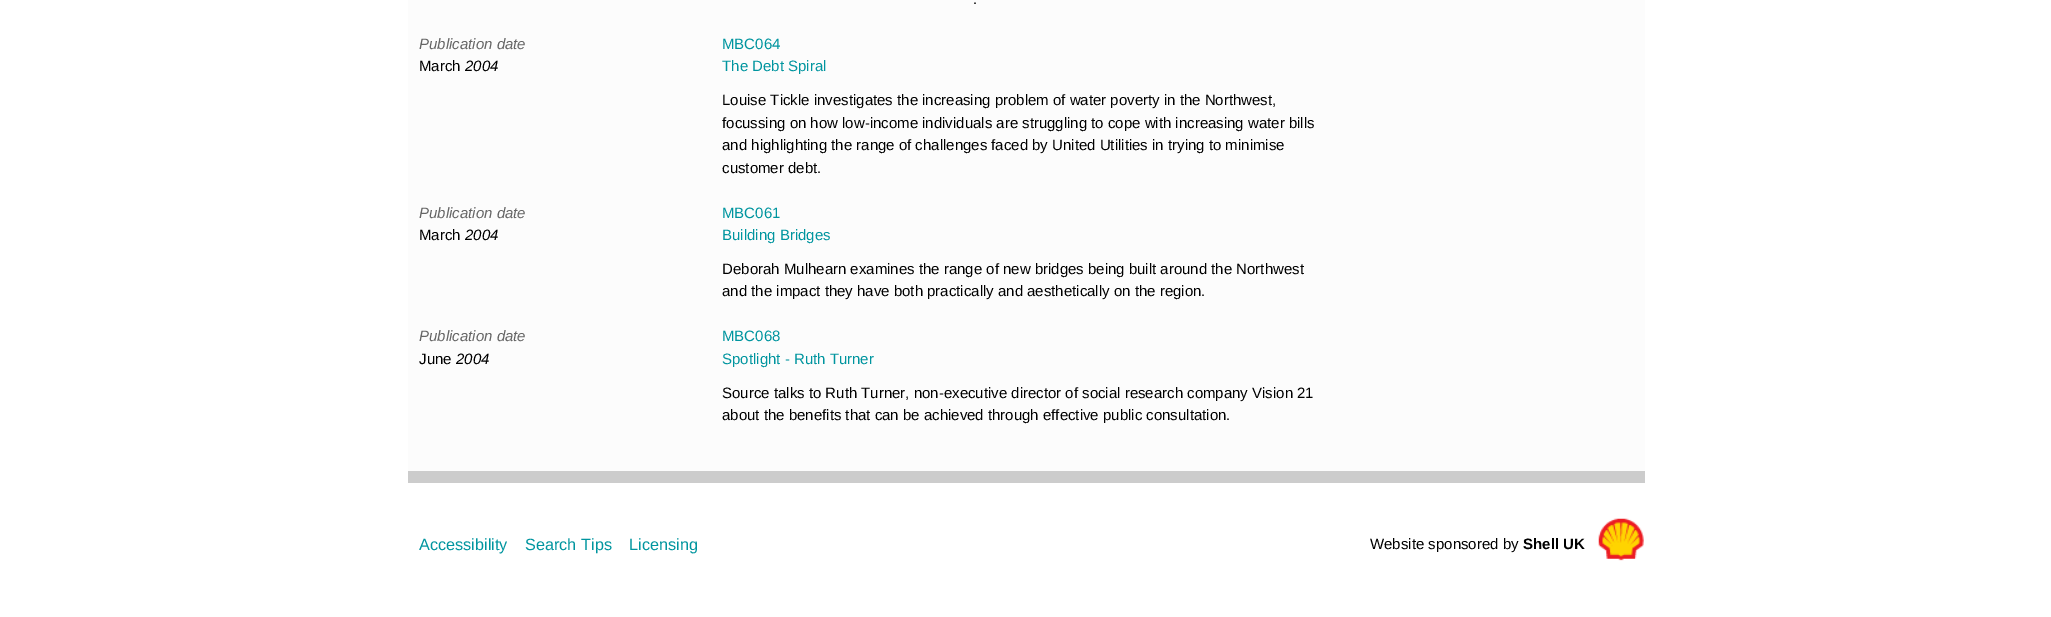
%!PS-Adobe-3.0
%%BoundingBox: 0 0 2051 617
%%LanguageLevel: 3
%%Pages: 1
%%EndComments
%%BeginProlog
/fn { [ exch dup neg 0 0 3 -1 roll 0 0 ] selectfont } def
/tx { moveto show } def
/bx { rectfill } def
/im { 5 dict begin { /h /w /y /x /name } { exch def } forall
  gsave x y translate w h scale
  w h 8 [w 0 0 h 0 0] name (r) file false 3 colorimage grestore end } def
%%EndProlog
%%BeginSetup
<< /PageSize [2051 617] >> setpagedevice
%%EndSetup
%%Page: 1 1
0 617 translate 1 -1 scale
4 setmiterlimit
1 setgray
0 0 2051 617 bx
0.988 setgray
408 0 1237 471 bx
0.8 setgray
408 471 1237 12 bx
/LiberationSans-Regular 15 fn
0 setgray
(.) 973 4 tx
/LiberationSans-Italic 15 fn
0.4 setgray
(Publication date) 419 49 tx
/LiberationSans-Regular 15 fn
0 setgray
(March) 419 71 tx
/LiberationSans-Italic 15 fn
(2004) 465 71 tx
/LiberationSans-Regular 15 fn
0 0.584 0.624 setrgbcolor
(MBC064) 722 49 tx
(The Debt Spiral) 722 71 tx
0 setgray
(Louise Tickle investigates the increasing problem of water poverty in the Northwest,) 722 105 tx
(focussing on how low-income individuals are struggling to cope with increasing water bills) 722 128 tx
(and highlighting the range of challenges faced by United Utilities in trying to minimise) 722 150 tx
(customer debt.) 722 173 tx
/LiberationSans-Italic 15 fn
0.4 setgray
(Publication date) 419 218 tx
/LiberationSans-Regular 15 fn
0 setgray
(March) 419 240 tx
/LiberationSans-Italic 15 fn
(2004) 465 240 tx
/LiberationSans-Regular 15 fn
0 0.584 0.624 setrgbcolor
(MBC061) 722 218 tx
(Building Bridges) 722 240 tx
0 setgray
(Deborah Mulhearn examines the range of new bridges being built around the Northwest) 722 274 tx
(and the impact they have both practically and aesthetically on the region.) 722 296 tx
/LiberationSans-Italic 15 fn
0.4 setgray
(Publication date) 419 341 tx
/LiberationSans-Regular 15 fn
0 setgray
(June) 419 364 tx
/LiberationSans-Italic 15 fn
(2004) 456 364 tx
/LiberationSans-Regular 15 fn
0 0.584 0.624 setrgbcolor
(MBC068) 722 341 tx
(Spotlight - Ruth Turner) 722 364 tx
0 setgray
(Source talks to Ruth Turner, non-executive director of social research company Vision 21) 722 398 tx
(about the benefits that can be achieved through effective public consultation.) 722 420 tx
/LiberationSans-Regular 16.25 fn
0 0.584 0.624 setrgbcolor
(Accessibility) 419 550 tx
(Search Tips) 525 550 tx
(Licensing) 629 550 tx
/LiberationSans-Regular 15 fn
0 setgray
(Website sponsored by) 1370 549 tx
/LiberationSans-Bold 15 fn
(Shell UK) 1523 549 tx
(image0.raw) 1598 518 46 43 im
showpage
%%EOF
